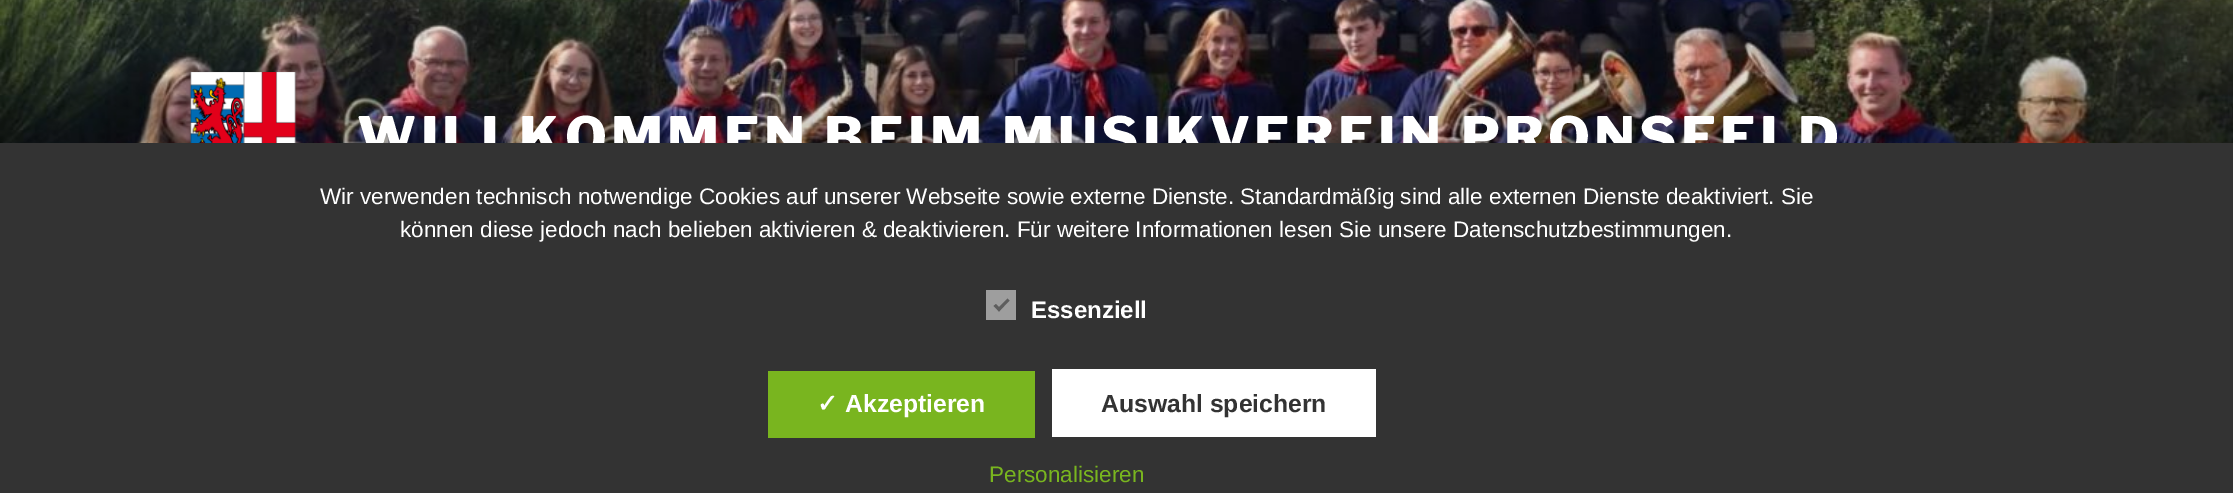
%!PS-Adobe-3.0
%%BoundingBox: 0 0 2233 493
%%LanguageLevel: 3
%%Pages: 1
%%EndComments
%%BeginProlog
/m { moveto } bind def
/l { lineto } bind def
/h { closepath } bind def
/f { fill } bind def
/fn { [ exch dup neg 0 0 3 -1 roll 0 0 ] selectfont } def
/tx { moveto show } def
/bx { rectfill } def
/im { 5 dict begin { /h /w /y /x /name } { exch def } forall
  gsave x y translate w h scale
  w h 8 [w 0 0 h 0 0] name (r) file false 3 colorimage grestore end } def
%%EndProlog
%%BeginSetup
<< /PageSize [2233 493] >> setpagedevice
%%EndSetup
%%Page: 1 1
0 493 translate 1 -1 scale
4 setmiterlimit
1 setgray
0 0 2233 493 bx
(image0.raw) 0 0 2233 143 im
(image1.raw) 189 72 108 71 im
/LibreFranklin-Thin 54 fn
357 156 m 4.3 0 (WILLKOMMEN BEIM MUSIKVEREIN PRONSFELD) ashow
0.2 setgray
0 143 2233 350 bx
/LiberationSans-Regular 22.5 fn
1 setgray
(Wir verwenden technisch notwendige Cookies auf unserer Webseite sowie externe Dienste. Standardmäßig sind alle externen Dienste deaktiviert. Sie) 320 204 tx
(können diese jedoch nach belieben aktivieren & deaktivieren. Für weitere Informationen lesen Sie unsere Datenschutzbestimmungen.) 400 237 tx
0.62 setgray
986 290 30 30 bx
0.369 setgray
1007.5 298.5 m 1009.5 300.5 l 999 311.5 l 997 309 l h f
996 304 m 1001 309 l 999 311.5 l 993.5 306 l h f
/LiberationSans-Bold 24 fn
1 setgray
(Essenziell) 1031 318 tx
0.475 0.71 0.122 setrgbcolor
768 371 267 67 bx
/DejaVuSans-Bold 24.75 fn
1 setgray
(✓) 817 412 tx
/LiberationSans-Bold 24.75 fn
(Akzeptieren) 845 412 tx
1052 369 324 68 bx
0.2 setgray
(Auswahl speichern) 1101 412 tx
/LiberationSans-Regular 22.5 fn
0.475 0.71 0.122 setrgbcolor
(Personalisieren) 989 482 tx
showpage
%%EOF
